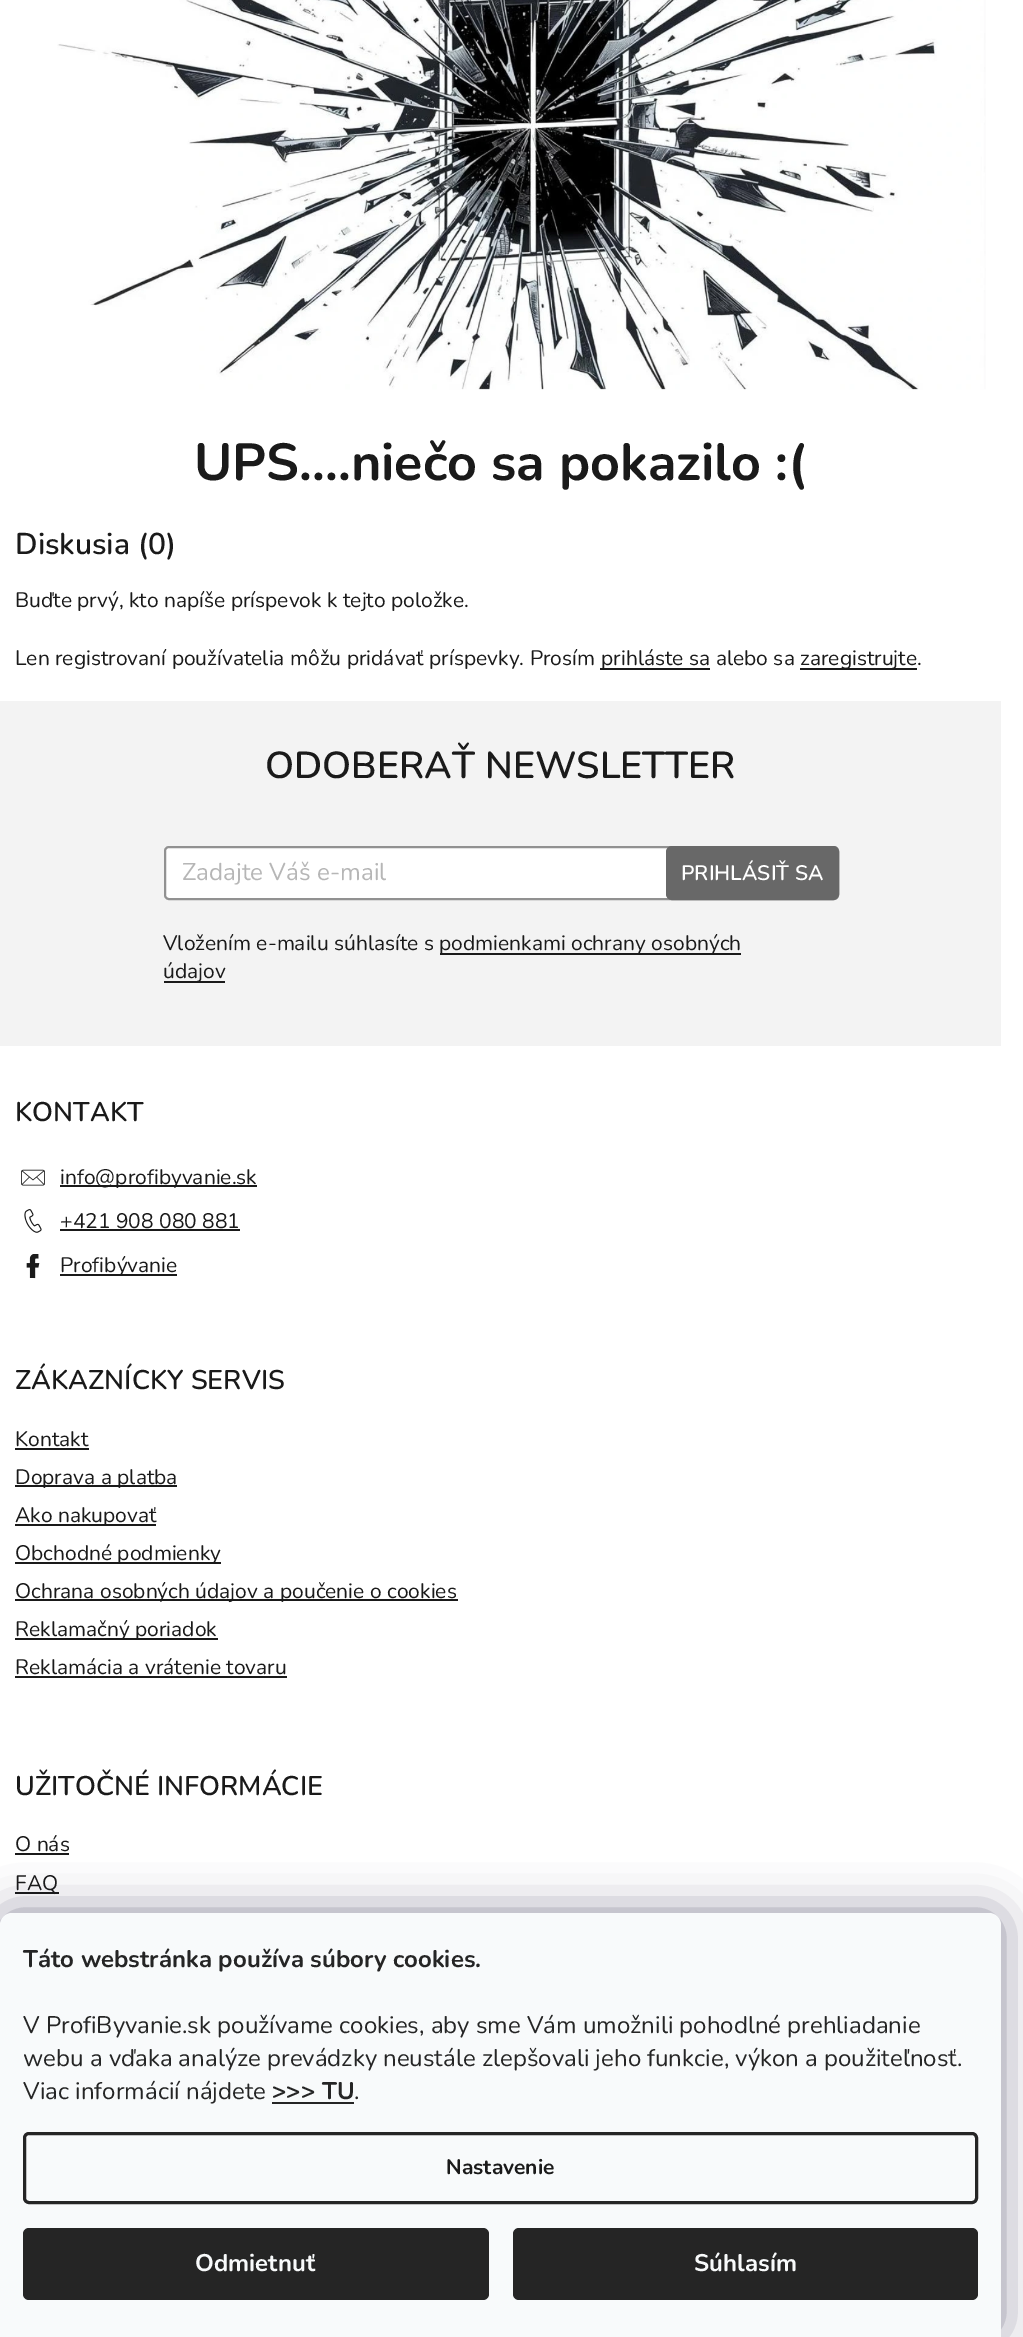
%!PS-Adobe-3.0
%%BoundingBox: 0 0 1023 2337
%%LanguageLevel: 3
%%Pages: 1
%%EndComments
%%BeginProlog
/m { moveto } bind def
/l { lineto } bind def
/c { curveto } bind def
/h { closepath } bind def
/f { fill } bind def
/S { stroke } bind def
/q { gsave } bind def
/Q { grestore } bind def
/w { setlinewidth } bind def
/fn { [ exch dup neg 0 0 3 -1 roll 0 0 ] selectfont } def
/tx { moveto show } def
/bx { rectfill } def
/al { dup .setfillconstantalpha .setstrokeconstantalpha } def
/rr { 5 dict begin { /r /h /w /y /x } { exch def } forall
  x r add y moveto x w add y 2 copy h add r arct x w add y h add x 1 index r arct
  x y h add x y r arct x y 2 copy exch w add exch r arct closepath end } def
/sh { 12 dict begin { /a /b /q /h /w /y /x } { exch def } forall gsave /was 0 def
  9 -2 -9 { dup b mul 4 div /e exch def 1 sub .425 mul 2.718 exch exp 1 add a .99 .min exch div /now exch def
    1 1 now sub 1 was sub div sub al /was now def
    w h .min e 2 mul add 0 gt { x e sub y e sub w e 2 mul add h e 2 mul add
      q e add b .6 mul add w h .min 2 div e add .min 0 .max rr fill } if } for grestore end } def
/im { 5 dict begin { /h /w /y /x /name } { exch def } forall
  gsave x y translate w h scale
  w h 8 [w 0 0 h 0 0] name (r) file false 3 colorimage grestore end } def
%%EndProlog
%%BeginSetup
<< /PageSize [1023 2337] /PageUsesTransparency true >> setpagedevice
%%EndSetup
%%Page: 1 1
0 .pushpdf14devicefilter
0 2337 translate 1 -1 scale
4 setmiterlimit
1 setgray
0 0 1023 2337 bx
(image0.raw) 57 0 929 390 im
/Nunito-Bold 52 fn
0.102 setgray
(UPS....niečo sa pokazilo :\() 194 480 tx
/Nunito-SemiBold 30 fn
(Diskusia \(0\)) 15 554 tx
/Nunito-Regular 21 fn
(Buďte prvý, kto napíše príspevok k tejto položke.) 15 607 tx
(Len registrovaní používatelia môžu pridávať príspevky. Prosím) 15 665 tx
600 668 110 2 bx
(prihláste sa alebo sa) 601 665 tx
800 668 117 2 bx
(zaregistrujte.) 800 665 tx
0.953 setgray
0 701 1001 345 bx
/Nunito-SemiBold 37.5 fn
0.102 setgray
(ODOBERAŤ NEWSLETTER) 265 778 tx
1 setgray
165 847 673 52 4 rr q f Q
0.569 setgray
2 w
S
/Nunito-Regular 24.25 fn
0.714 setgray
(Zadajte Váš e-mail) 182 880 tx
0.408 setgray
667 847 171 52 5 rr q f Q
S
/Nunito-SemiBold 21 fn
1 setgray
(PRIHLÁSIŤ SA) 681 880 tx
/Nunito-Regular 21 fn
0.102 setgray
(Vložením e-mailu súhlasíte s) 163 950 tx
440 953 301 2 bx
(podmienkami ochrany osobných) 439 950 tx
164 981 61 2 bx
(údajov) 163 978 tx
/Nunito-SemiBold 27 fn
(KONTAKT) 15 1121 tx
(image1.raw) 21 1169 24 17 im
60 1185 197 2 bx
/Nunito-Regular 21 fn
(info@profibyvanie.sk) 60 1184 tx
(image2.raw) 24 1209 18 24 im
(+421 908 080 881) 60 1228 tx
60 1229 180 2 bx
(image3.raw) 26 1254 14 25 im
60 1274 117 2 bx
(Profibývanie) 60 1272 tx
/Nunito-SemiBold 27 fn
(ZÁKAZNÍCKY SERVIS) 15 1389 tx
/Nunito-Regular 21 fn
(Kontakt) 15 1446 tx
15 1448 74 2 bx
15 1485 162 2 bx
(Doprava a platba) 15 1484 tx
15 1524 141 2 bx
(Ako nakupovať) 15 1522 tx
15 1562 206 2 bx
(Obchodné podmienky) 15 1560 tx
15 1599 443 2 bx
(Ochrana osobných údajov a poučenie o cookies) 15 1598 tx
15 1638 203 2 bx
(Reklamačný poriadok) 15 1636 tx
(Reklamácia a vrátenie tovaru) 15 1674 tx
15 1676 272 2 bx
/Nunito-SemiBold 27 fn
(UŽITOČNÉ INFORMÁCIE) 15 1795 tx
/Nunito-Regular 21 fn
(O nás) 15 1851 tx
15 1853 54 2 bx
15 1892 44 2 bx
(FAQ) 15 1890 tx
0.106 0.098 0.224 setrgbcolor
0 1913 1001 424 12 22.5 0.5 sh
0.973 0.98 0.984 setrgbcolor
12 1913 m 989 1913 l 995.5 1913 1001 1918.5 1001 1925 c 1001 2337 l 0 2337 l 0 1925 l 0 1918.5 5.5 1913 12 1913 c h f
/Nunito-Bold 24 fn
0.145 setgray
(Táto webstránka používa súbory cookies.) 23 1967 tx
/Nunito-Regular 24 fn
(V ProfiByvanie.sk používame cookies, aby sme Vám umožnili pohodlné prehliadanie) 23 2033 tx
(webu a vďaka analýze prevádzky neustále zlepšovali jeho funkcie, výkon a použiteľnosť.) 23 2066 tx
(Viac informácií nájdete) 23 2099 tx
/Nunito-Bold 24 fn
(>>> TU) 272 2099 tx
272 2102 82 2 bx
/Nunito-Regular 24 fn
(.) 354 2099 tx
3 w
24.5 2133.5 952 69 4.5 rr S
/Nunito-Bold 21 fn
0.102 setgray
(Nastavenie) 446 2174 tx
0.145 setgray
23 2228 466 72 6 rr f
/Nunito-Bold 24 fn
0.973 0.98 0.984 setrgbcolor
(Odmietnuť) 195 2271 tx
0.145 setgray
513 2228 465 72 6 rr f
0.973 0.98 0.984 setrgbcolor
(Súhlasím) 694 2271 tx
.poppdf14devicefilter showpage
%%EOF
